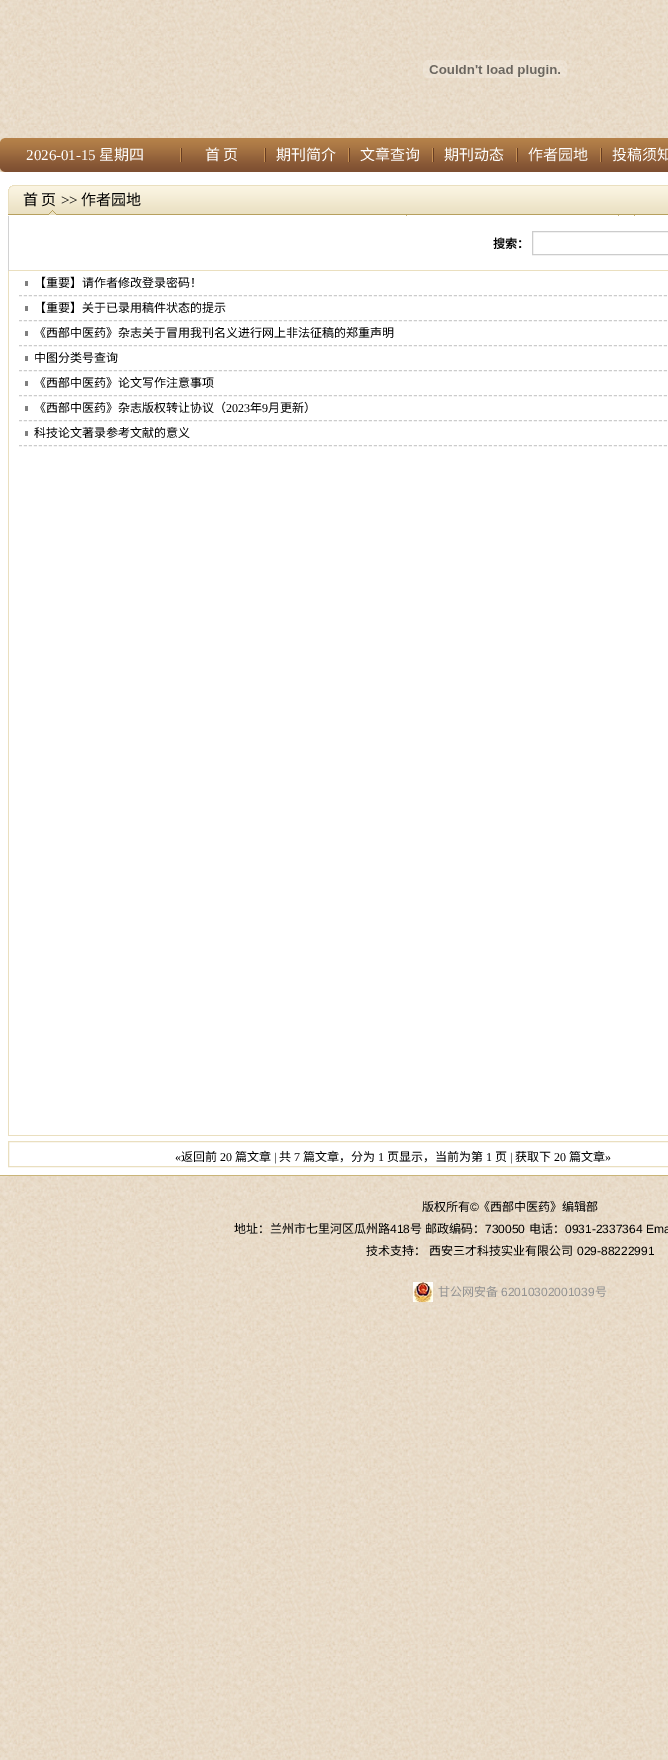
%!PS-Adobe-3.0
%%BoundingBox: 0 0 668 1760
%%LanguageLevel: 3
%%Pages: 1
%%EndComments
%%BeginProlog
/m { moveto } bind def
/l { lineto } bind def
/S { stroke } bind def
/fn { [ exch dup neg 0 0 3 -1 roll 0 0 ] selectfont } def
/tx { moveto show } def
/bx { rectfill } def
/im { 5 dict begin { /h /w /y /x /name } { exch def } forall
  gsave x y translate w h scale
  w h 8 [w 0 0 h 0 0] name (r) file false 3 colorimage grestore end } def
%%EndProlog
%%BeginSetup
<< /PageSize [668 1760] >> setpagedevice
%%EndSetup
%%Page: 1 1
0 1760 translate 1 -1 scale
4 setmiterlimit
1 setgray
0 0 668 1760 bx
(image0.raw) 0 0 668 1760 im
(image1.raw) 423 60 144 18 im
(image2.raw) 0 138 668 34 im
/LiberationSerif-Regular 15 fn
(2026-01-15) 26 160 tx
/NotoSansCJKSC-Regular 15 fn
(星期四) 99 160 tx
(image3.raw) 180 148 2 14 im
(首 页) 205 160 tx
(image3.raw) 264 148 2 14 im
(期刊简介) 276 160 tx
(image3.raw) 348 148 2 14 im
(文章查询) 360 160 tx
(image3.raw) 432 148 2 14 im
(期刊动态) 444 160 tx
(image3.raw) 516 148 2 14 im
(作者园地) 528 160 tx
(image3.raw) 600 148 2 14 im
(投稿须知) 612 160 tx
0 172 668 1003 bx
(image4.raw) 8 185 660 31 im
0 setgray
(首 页) 23 205 tx
/LiberationSerif-Regular 15 fn
(>>) 61 205 tx
/NotoSansCJKSC-Regular 15 fn
(作者园地) 81 205 tx
0.918 0.875 0.749 setrgbcolor
8 270 660 1 bx
0.824 setgray
8 216 1 55 bx
/NotoSansCJKSC-Bold 12 fn
0 setgray
(搜索：) 493 248 tx
0.8 setgray
532.5 231.5 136 23 rectstroke
0.918 0.875 0.749 setrgbcolor
8 1135 660 1 bx
8 271 1 865 bx
0.498 setgray
25 281 3 5 bx
0.8 setgray
[3 2] 0 setdash
19 295.5 m 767 295.5 l S
/NotoSansCJKSC-Regular 12 fn
0 setgray
(【重要】请作者修改登录密码！) 34 287 tx
0.498 setgray
25 306 3 5 bx
0.8 setgray
19 320.5 m 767 320.5 l S
0 setgray
(【重要】关于已录用稿件状态的提示) 34 312 tx
0.498 setgray
25 331 3 5 bx
0.8 setgray
19 345.5 m 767 345.5 l S
0 setgray
(《西部中医药》杂志关于冒用我刊名义进行网上非法征稿的郑重声明) 34 337 tx
0.498 setgray
25 356 3 5 bx
0.8 setgray
19 370.5 m 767 370.5 l S
0 setgray
(中图分类号查询) 34 362 tx
0.498 setgray
25 381 3 5 bx
0.8 setgray
19 395.5 m 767 395.5 l S
0 setgray
(《西部中医药》论文写作注意事项) 34 387 tx
0.498 setgray
25 406 3 5 bx
0.8 setgray
19 420.5 m 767 420.5 l S
0 setgray
(《西部中医药》杂志版权转让协议（) 34 412 tx
/LiberationSerif-Regular 12 fn
(2023) 226 412 tx
/NotoSansCJKSC-Regular 12 fn
(年) 250 412 tx
/LiberationSerif-Regular 12 fn
(9) 262 412 tx
/NotoSansCJKSC-Regular 12 fn
(月更新）) 268 412 tx
0.498 setgray
25 431 3 5 bx
0.8 setgray
19 445.5 m 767 445.5 l S
0 setgray
(科技论文著录参考文献的意义) 34 437 tx
0.918 0.875 0.749 setrgbcolor
[] 0 setdash
8.5 1141.5 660 25 rectstroke
/LiberationSerif-Regular 12 fn
0 setgray
(«) 175 1161 tx
/NotoSansCJKSC-Regular 12 fn
(返回前) 181 1161 tx
/LiberationSerif-Regular 12 fn
(20) 220 1161 tx
/NotoSansCJKSC-Regular 12 fn
(篇文章) 235 1161 tx
/LiberationSerif-Regular 12 fn
(|) 274 1161 tx
/NotoSansCJKSC-Regular 12 fn
(共) 279 1161 tx
/LiberationSerif-Regular 12 fn
(7) 294 1161 tx
/NotoSansCJKSC-Regular 12 fn
(篇文章，分为) 303 1161 tx
/LiberationSerif-Regular 12 fn
(1) 378 1161 tx
/NotoSansCJKSC-Regular 12 fn
(页显示，当前为第) 387 1161 tx
/LiberationSerif-Regular 12 fn
(1) 486 1161 tx
/NotoSansCJKSC-Regular 12 fn
(页) 495 1161 tx
/LiberationSerif-Regular 12 fn
(|) 510 1161 tx
/NotoSansCJKSC-Regular 12 fn
(获取下) 515 1161 tx
/LiberationSerif-Regular 12 fn
(20) 554 1161 tx
/NotoSansCJKSC-Regular 12 fn
(篇文章) 569 1161 tx
/LiberationSerif-Regular 12 fn
(») 605 1161 tx
0.792 0.71 0.475 setrgbcolor
0 1175 668 1 bx
/NotoSansCJKSC-Regular 12 fn
0 setgray
(版权所有) 422 1211 tx
/LiberationSans-Regular 12 fn
(©) 470 1211 tx
/NotoSansCJKSC-Regular 12 fn
(《西部中医药》编辑部) 478 1211 tx
(地址：兰州市七里河区瓜州路) 234 1233 tx
/LiberationSans-Regular 12 fn
(418) 390 1233 tx
/NotoSansCJKSC-Regular 12 fn
(号) 410 1233 tx
(邮政编码：) 425 1233 tx
/LiberationSans-Regular 12 fn
(730050) 485 1233 tx
/NotoSansCJKSC-Regular 12 fn
(电话：) 529 1233 tx
/LiberationSans-Regular 12 fn
(0931-2337364 Ema) 565 1233 tx
/NotoSansCJKSC-Regular 12 fn
(技术支持：) 366 1255 tx
(西安三才科技实业有限公司) 429 1255 tx
/LiberationSans-Regular 12 fn
(029-88222991) 577 1255 tx
(image5.raw) 413 1282 20 20 im
/NotoSansCJKSC-Regular 12 fn
0.576 setgray
(甘公网安备) 438 1296 tx
/LiberationSans-Regular 12 fn
(62010302001039) 501 1296 tx
/NotoSansCJKSC-Regular 12 fn
(号) 595 1296 tx
showpage
%%EOF
